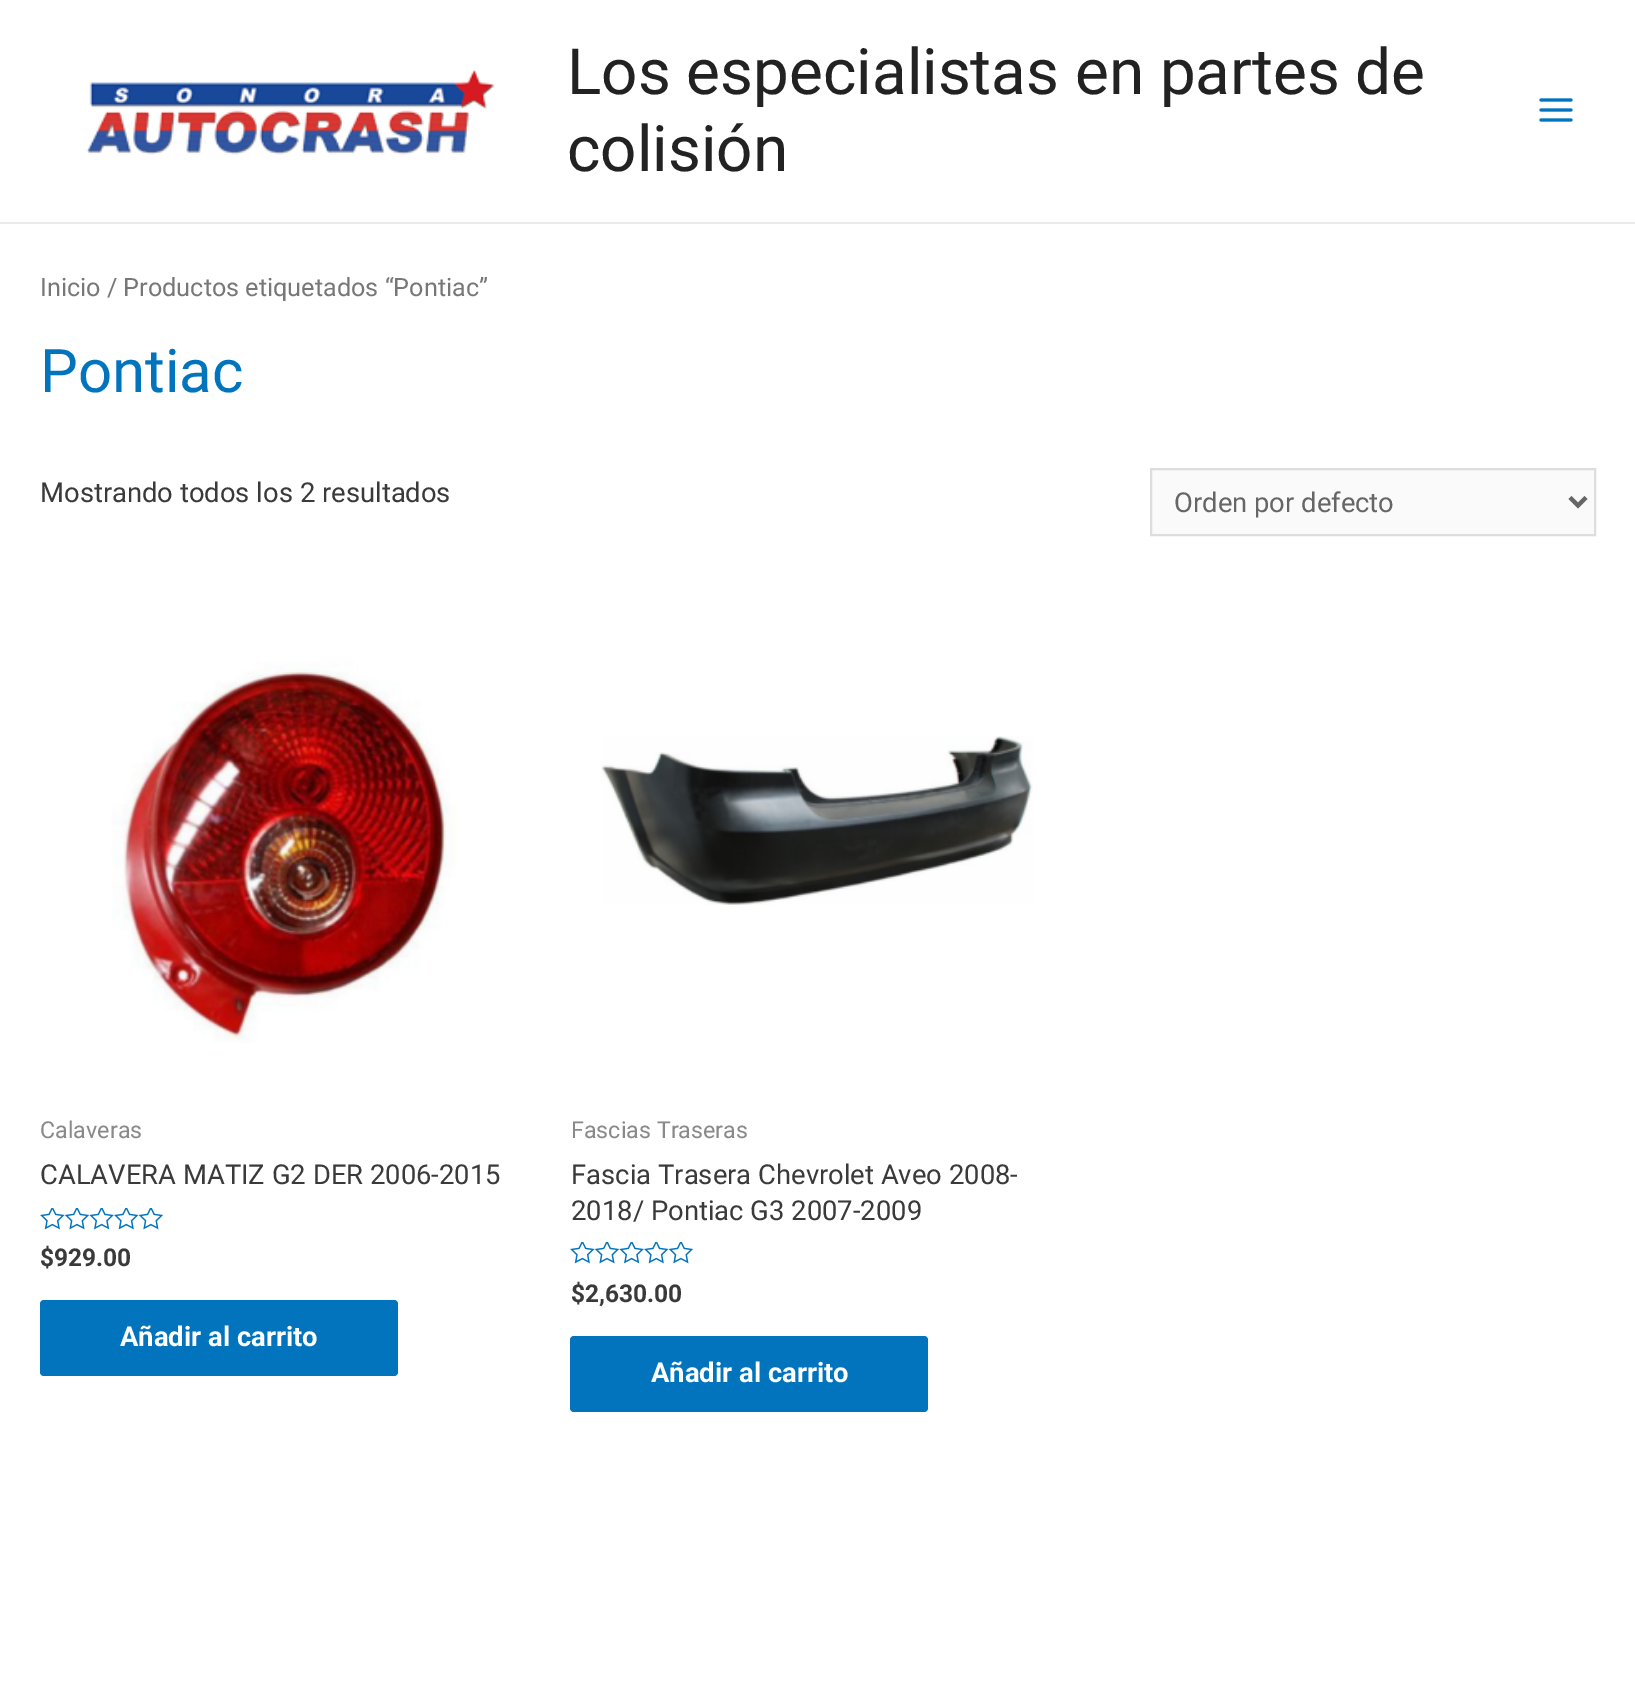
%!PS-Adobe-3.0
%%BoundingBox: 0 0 1635 1695
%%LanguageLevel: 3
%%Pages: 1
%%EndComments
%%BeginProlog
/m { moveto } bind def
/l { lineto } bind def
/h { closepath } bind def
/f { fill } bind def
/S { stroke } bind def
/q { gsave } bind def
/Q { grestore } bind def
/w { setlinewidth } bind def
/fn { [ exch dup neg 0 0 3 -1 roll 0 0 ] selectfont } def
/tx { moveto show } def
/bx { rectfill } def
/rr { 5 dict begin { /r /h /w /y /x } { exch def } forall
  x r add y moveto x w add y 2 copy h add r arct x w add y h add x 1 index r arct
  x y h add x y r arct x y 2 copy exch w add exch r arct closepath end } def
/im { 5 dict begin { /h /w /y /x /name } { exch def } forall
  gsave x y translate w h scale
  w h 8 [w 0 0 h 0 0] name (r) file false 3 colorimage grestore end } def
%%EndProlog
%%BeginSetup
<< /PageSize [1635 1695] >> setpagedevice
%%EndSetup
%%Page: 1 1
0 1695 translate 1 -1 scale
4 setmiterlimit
1 setgray
0 0 1635 1695 bx
0.918 setgray
0 222 1635 2 bx
(image0.raw) 86 69 409 86 im
/Roboto-Regular 63.8 fn
0.133 setgray
(Los especialistas en partes de) 567 94 tx
(colisión) 567 171 tx
(image1.raw) 1539 98 34 24 im
/Roboto-Regular 25.2 fn
0.467 setgray
(Inicio / Productos etiquetados “Pontiac”) 40 296 tx
/Roboto-Regular 60 fn
0.008 0.455 0.745 setrgbcolor
(Pontiac) 40 392 tx
/Roboto-Regular 27.4 fn
0.227 setgray
(Mostrando todos los 2 resultados) 40 502 tx
0.98 setgray
1151 469 m 1595 469 l 1595 535 l 1151 535 l h q f Q
0.867 setgray
2 w
S
0.4 setgray
4 w
1570 497.5 m 1578 505.5 l 1586 497.5 l S
(Orden por defecto) 1174 512 tx
(image2.raw) 112 662 345 381 im
/Roboto-Regular 23.25 fn
0.537 setgray
(Calaveras) 40 1138 tx
/Roboto-Regular 27.4 fn
0.227 setgray
(CALAVERA MATIZ G2 DER 2006-2015) 40 1184 tx
(image3.raw) 40 1208 123 22 im
/Roboto-Bold 24.5 fn
($929.00) 40 1266 tx
0.008 0.455 0.745 setrgbcolor
40 1300 358 76 4 rr f
/Roboto-Bold 27.4 fn
1 setgray
(Añadir al carrito) 120 1346 tx
(image4.raw) 601 736 432 169 im
/Roboto-Regular 23.25 fn
0.537 setgray
(Fascias Traseras) 571 1138 tx
/Roboto-Regular 27.4 fn
0.227 setgray
(Fascia Trasera Chevrolet Aveo 2008-) 571 1184 tx
(2018/ Pontiac G3 2007-2009) 571 1220 tx
(image3.raw) 570 1242 123 22 im
/Roboto-Bold 24.5 fn
($2,630.00) 571 1302 tx
0.008 0.455 0.745 setrgbcolor
570 1336 358 76 4 rr f
/Roboto-Bold 27.4 fn
1 setgray
(Añadir al carrito) 651 1382 tx
showpage
%%EOF
